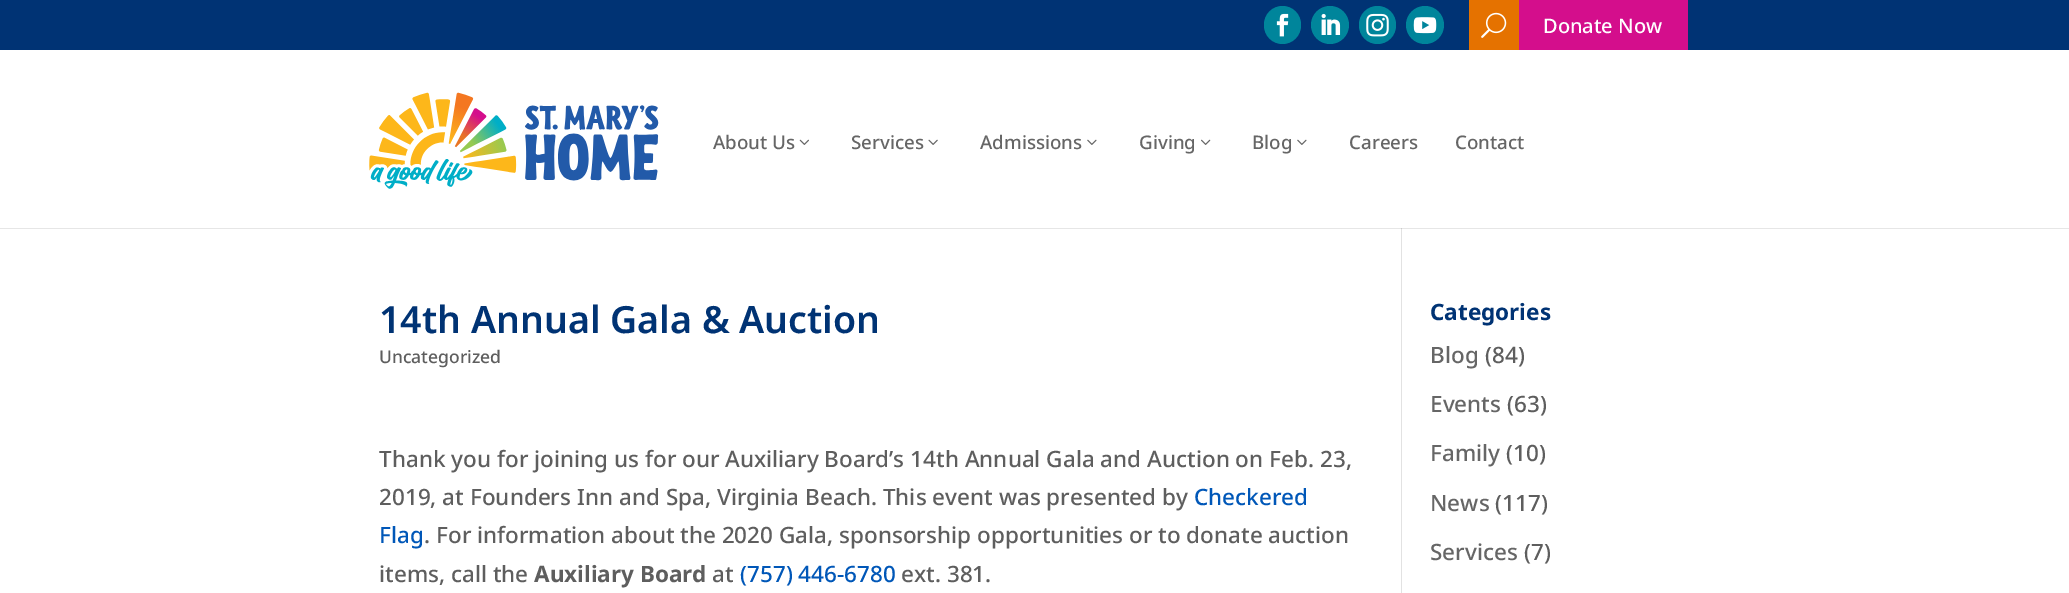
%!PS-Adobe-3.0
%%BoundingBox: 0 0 2069 593
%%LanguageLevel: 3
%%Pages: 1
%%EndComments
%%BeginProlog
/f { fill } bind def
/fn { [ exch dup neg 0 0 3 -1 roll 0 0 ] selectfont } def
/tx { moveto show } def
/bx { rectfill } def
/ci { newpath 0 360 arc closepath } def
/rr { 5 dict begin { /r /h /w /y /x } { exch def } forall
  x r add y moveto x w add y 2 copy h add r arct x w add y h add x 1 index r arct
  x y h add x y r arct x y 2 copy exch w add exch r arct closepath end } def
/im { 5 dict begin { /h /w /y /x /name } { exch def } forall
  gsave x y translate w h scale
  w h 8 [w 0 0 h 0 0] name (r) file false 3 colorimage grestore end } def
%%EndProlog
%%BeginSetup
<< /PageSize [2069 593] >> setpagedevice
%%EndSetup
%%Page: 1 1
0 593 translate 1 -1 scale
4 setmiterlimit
1 setgray
0 0 2069 593 bx
0.902 setgray
0 228 2069 1 bx
0 0.2 0.455 setrgbcolor
0 0 2069 50 bx
0 0.522 0.608 setrgbcolor
1264 6 37 38 18.5 rr f
(image0.raw) 1276 13 13 24 im
1330 25 19 ci f
(image1.raw) 1321 13 20 22 im
1359 6 37 38 18.5 rr f
(image2.raw) 1366 13 23 24 im
1425 25 19 ci f
(image3.raw) 1413 17 24 17 im
0.898 0.447 0 setrgbcolor
1469 0 50 50 bx
(image4.raw) 1481 12 26 26 im
0.831 0.055 0.549 setrgbcolor
1519 0 169 50 bx
/NotoSans-Medium 20 fn
1 setgray
(Donate Now) 1543 33 tx
(image5.raw) 369 92 290 97 im
/NotoSans-Medium 18.75 fn
0.4 setgray
(About Us) 713 149 tx
(image6.raw) 799 139 10 6 im
(Services) 851 149 tx
(image7.raw) 928 139 10 6 im
(Admissions) 980 149 tx
(image8.raw) 1087 139 10 6 im
(Giving) 1139 149 tx
(image9.raw) 1201 139 10 6 im
(Blog) 1252 149 tx
(image8.raw) 1297 139 10 6 im
(Careers) 1349 149 tx
(Contact) 1455 149 tx
0.886 setgray
1401 228 1 365 bx
0.796 setgray
1401 228 1 1 bx
/NotoSans-SemiBold 37.5 fn
0 0.2 0.455 setrgbcolor
(14th Annual Gala & Auction) 379 333 tx
/NotoSans-Medium 17.5 fn
0.369 setgray
(Uncategorized) 379 363 tx
/NotoSans-Medium 22.5 fn
(Thank you for joining us for our Auxiliary Board’s 14th Annual Gala and Auction on Feb. 23,) 379 467 tx
(2019, at Founders Inn and Spa, Virginia Beach. This event was presented by) 379 505 tx
0 0.341 0.722 setrgbcolor
(Checkered) 1194 505 tx
(Flag) 379 543 tx
0.369 setgray
(. For information about the 2020 Gala, sponsorship opportunities or to donate auction) 424 543 tx
(items, call the) 379 582 tx
/NotoSans-Bold 22.5 fn
(Auxiliary Board) 534 582 tx
/NotoSans-Medium 22.5 fn
(at) 712 582 tx
0 0.341 0.722 setrgbcolor
(\(757\) 446-6780) 740 582 tx
0.369 setgray
(ext. 381.) 901 582 tx
/NotoSans-Bold 22.5 fn
0 0.2 0.455 setrgbcolor
(Categories) 1430 320 tx
/NotoSans-Medium 22.5 fn
0.4 setgray
(Blog) 1430 363 tx
0.369 setgray
(\(84\)) 1485 363 tx
0.4 setgray
(Events) 1430 412 tx
0.369 setgray
(\(63\)) 1507 412 tx
0.4 setgray
(Family) 1430 461 tx
0.369 setgray
(\(10\)) 1506 461 tx
0.4 setgray
(News) 1430 511 tx
0.369 setgray
(\(117\)) 1495 511 tx
0.4 setgray
(Services) 1430 560 tx
0.369 setgray
(\(7\)) 1524 560 tx
showpage
%%EOF
